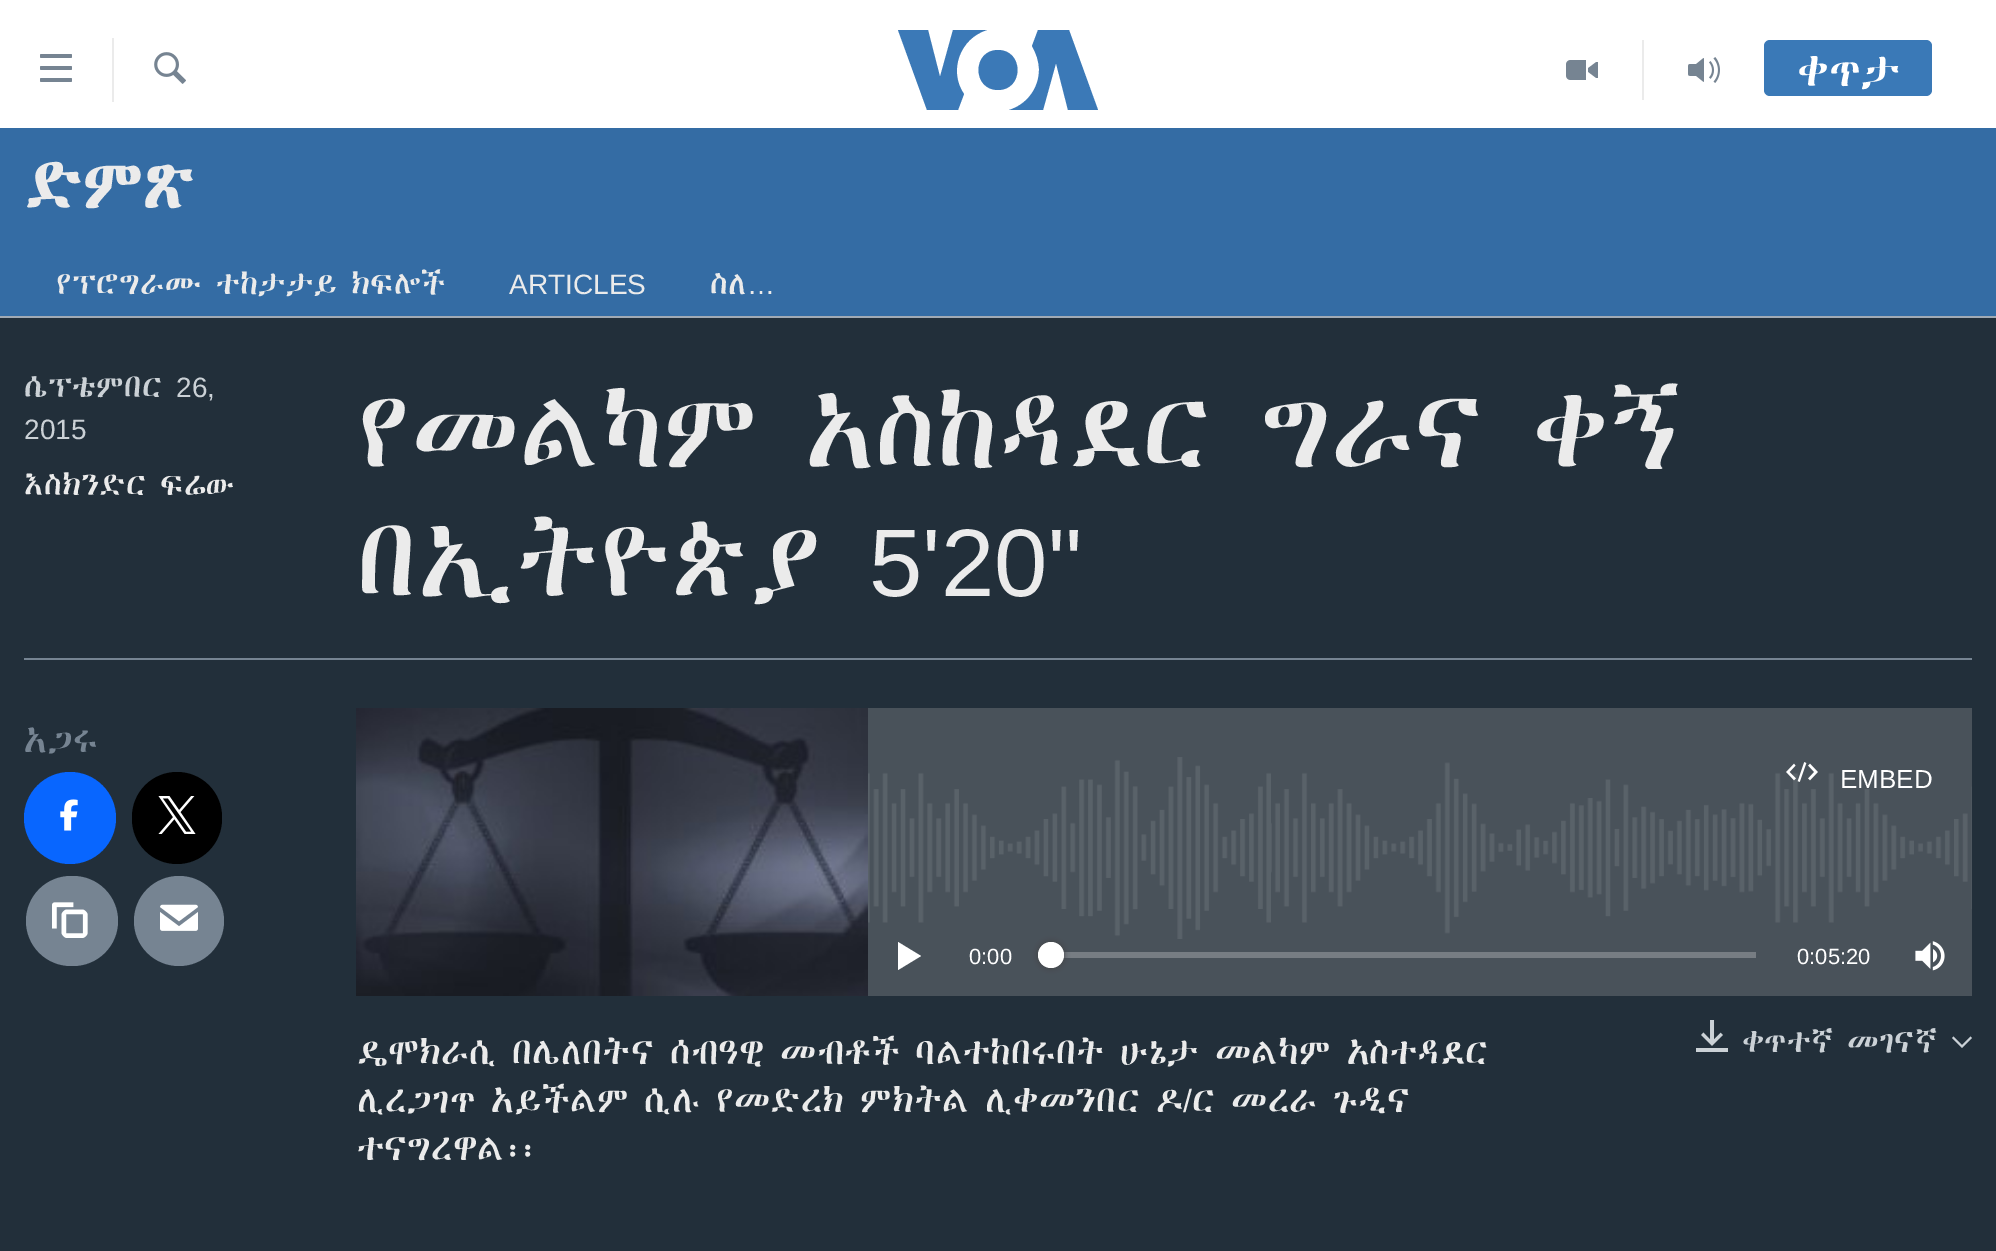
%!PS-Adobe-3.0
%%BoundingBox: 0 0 1996 1251
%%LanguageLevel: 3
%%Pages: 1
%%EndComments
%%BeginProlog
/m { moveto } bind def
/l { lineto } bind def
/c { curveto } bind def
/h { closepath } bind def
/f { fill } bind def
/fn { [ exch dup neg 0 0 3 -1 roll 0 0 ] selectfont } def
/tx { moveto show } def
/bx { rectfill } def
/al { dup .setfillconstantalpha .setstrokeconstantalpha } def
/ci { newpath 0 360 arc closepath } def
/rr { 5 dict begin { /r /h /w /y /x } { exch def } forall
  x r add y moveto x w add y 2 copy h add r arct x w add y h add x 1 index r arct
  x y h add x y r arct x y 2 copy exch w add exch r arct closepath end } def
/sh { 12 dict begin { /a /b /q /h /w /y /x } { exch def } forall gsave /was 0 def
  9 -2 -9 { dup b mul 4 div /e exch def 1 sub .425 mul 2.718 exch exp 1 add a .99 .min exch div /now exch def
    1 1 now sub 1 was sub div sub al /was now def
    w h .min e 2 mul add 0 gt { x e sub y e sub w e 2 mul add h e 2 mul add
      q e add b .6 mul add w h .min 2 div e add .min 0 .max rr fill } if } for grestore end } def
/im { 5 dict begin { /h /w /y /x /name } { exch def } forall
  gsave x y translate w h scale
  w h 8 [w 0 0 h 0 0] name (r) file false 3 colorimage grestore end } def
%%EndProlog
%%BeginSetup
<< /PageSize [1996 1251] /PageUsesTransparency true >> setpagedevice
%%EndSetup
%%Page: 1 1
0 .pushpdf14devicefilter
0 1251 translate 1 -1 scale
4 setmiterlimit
1 setgray
0 0 1996 1251 bx
(image0.raw) 40 54 32 28 im
0.922 setgray
112 38 2 64 bx
(image1.raw) 154 52 32 32 im
0.231 0.475 0.718 setrgbcolor
964 94 m 958 110 l 927 110 l 898 30 l 928 30 l 940 77 l 953 30 l 987 30 l 960 38 948 71 964 94 c h 998 50 m 972 50 972 90 998 90 c 1024 90 1024 50 998 50 c h 1039 70 m 1039 89 1026 105 1009 110 c 1043 110 l 1056 63 l 1068 110 l 1098 110 l 1069 30 l 1038 30 l 1032 46 l 1036 53 1039 61 1039 70 c h f
0.922 setgray
1642 40 2 60 bx
(image2.raw) 1566 60 32 20 im
(image3.raw) 1688 57 32 26 im
0.227 0.475 0.718 setrgbcolor
1764 40 168 56 6 rr f
/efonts-Regular 40 fn
1 setgray
(ቀጥታ) 1797 86 tx
0.204 0.424 0.643 setrgbcolor
0 128 1996 188 bx
/efonts-Bold 61 fn
0.922 setgray
(ድምጽ) 24 208 tx
/efonts-Regular 28 fn
(የፕሮግራሙ ተከታታይ ክፍሎች) 56 294 tx
/LiberationSans-Regular 28 fn
(ARTICLES) 509 294 tx
/efonts-Regular 28 fn
(ስለ) 710 294 tx
/LiberationSans-Regular 28 fn
(…) 747 294 tx
0.133 0.184 0.227 setrgbcolor
0 318 1996 933 bx
0.631 0.667 0.706 setrgbcolor
0 316 1996 2 bx
/efonts-Regular 28 fn
0.796 0.82 0.839 setrgbcolor
(ሴፕቴምበር) 24 397 tx
/LiberationSans-Regular 28 fn
(26,) 176 397 tx
(2015) 24 439 tx
/efonts-Regular 28 fn
0.922 setgray
(እስክንድር ፍሬው) 24 495 tx
/efonts-Regular 96 fn
(የመልካም አስከዳደር ግራና ቀኝ) 357 467 tx
(በኢትዮጵያ) 357 596 tx
/LiberationSans-Regular 96 fn
(5'20") 869 596 tx
0.463 0.518 0.573 setrgbcolor
24 658 1948 2 bx
/efonts-Regular 32 fn
(አጋሩ) 24 752 tx
0.031 0.4 1 setrgbcolor
70 818 46 ci f
(image4.raw) 60 799 18 32 im
0 setgray
132 772 90 92 45 rr f
(image5.raw) 158 796 38 38 im
0.463 0.518 0.573 setrgbcolor
26 876 92 90 45 rr f
(image6.raw) 52 902 36 36 im
179 921 45 ci f
(image7.raw) 160 904 38 27 im
0.286 0.322 0.353 setrgbcolor
868 708 1104 288 bx
(image8.raw) 868 757 1104 182 im
(image9.raw) 356 708 512 288 im
(image10.raw) 1786 762 32 20 im
/LiberationSans-Regular 26 fn
1 setgray
(EMBED) 1840 788 tx
898 970 m 921 956 l 898 942 l h f
/LiberationSans-Regular 22 fn
(0:00) 969 964 tx
0.467 0.49 0.514 setrgbcolor
1063 952 693 6 bx
0.255 0.255 0.267 setrgbcolor
1038 942 26 26 13 3 1 sh
1 setgray
1051 955 13 ci f
(0:05:20) 1797 964 tx
(image11.raw) 1915 941 30 30 im
/efonts-Regular 32 fn
0.922 setgray
(ዴሞክራሲ በሌለበትና ሰብዓዊ መብቶች ባልተከበሩበት ሁኔታ መልካም አስተዳደር) 357 1064 tx
(ሊረጋገጥ አይችልም ሲሉ የመድረክ ምክትል ሊቀመንበር ዶ) 357 1112 tx
/LiberationSans-Regular 32 fn
(/) 1183 1112 tx
/efonts-Regular 32 fn
(ር መረራ ጉዲና) 1192 1112 tx
(ተናግረዋል፡፡) 357 1160 tx
(image12.raw) 1696 1020 32 32 im
/efonts-Regular 28 fn
0.796 0.82 0.839 setrgbcolor
(ቀጥተኛ መገናኛ) 1742 1052 tx
1952 1038 m 1962 1048 l 1972 1038 l 1970.5 1036.5 l 1962 1045 l 1953.5 1036.5 l h f
.poppdf14devicefilter showpage
%%EOF
